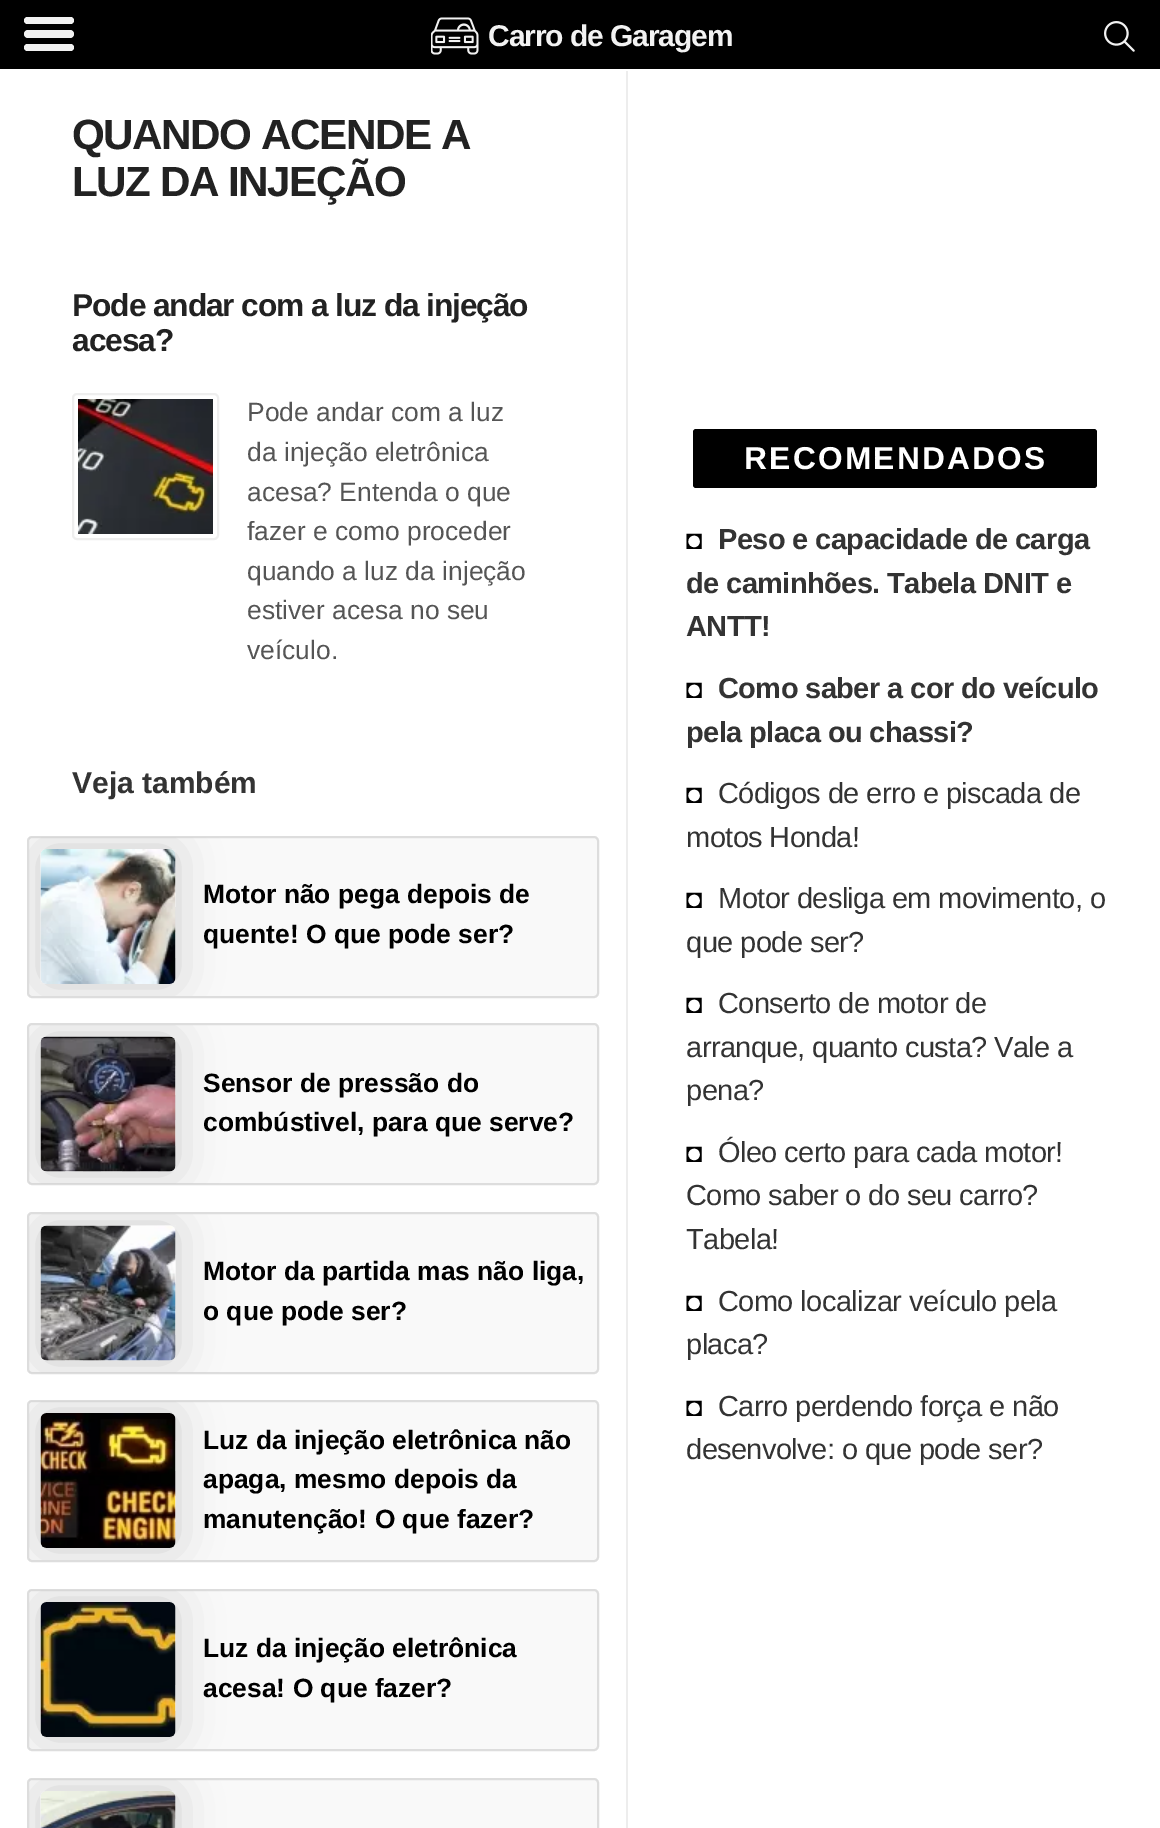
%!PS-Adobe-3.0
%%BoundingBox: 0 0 1160 1828
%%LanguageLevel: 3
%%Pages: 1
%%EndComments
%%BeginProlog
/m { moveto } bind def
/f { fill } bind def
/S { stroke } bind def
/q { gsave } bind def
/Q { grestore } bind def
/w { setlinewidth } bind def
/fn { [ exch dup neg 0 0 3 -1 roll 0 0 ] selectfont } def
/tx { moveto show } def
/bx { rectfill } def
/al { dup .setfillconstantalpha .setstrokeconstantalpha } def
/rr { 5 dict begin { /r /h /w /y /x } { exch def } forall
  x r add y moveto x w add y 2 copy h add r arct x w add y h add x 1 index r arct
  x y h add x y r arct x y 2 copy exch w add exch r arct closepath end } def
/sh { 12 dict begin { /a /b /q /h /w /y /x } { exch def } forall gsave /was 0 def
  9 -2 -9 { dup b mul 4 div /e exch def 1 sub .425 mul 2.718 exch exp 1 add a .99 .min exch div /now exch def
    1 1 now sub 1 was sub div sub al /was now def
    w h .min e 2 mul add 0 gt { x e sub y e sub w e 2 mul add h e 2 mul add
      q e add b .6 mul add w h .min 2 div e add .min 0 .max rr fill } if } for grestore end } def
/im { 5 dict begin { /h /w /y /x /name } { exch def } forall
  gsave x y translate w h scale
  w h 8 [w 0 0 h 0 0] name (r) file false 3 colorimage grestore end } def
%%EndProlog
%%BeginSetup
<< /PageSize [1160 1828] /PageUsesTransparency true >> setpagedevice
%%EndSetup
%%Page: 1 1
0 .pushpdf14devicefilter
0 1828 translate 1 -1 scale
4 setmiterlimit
0 setgray
0 0 1160 1828 bx
0.949 setgray
24 17 50 7 3.5 rr f
24 30 50 8 4 rr f
24 44 50 7 3.5 rr f
(image0.raw) 431 17 48 38 im
/LiberationSans-Bold 30 fn
488 46 m -1.1 0 (Carro de Garagem) ashow
(image1.raw) 1104 21 31 31 im
1 setgray
0 69 1160 1759 bx
/LiberationSans-Bold 42.25 fn
0.133 setgray
72 149 m -1.5 0 (QUANDO ACENDE A) ashow
72 196 m -1.5 0 (LUZ DA INJEÇÃO) ashow
/LiberationSans-Bold 31.7 fn
72 316 m -1.1 0 (Pode andar com a luz da injeção) ashow
72 351 m -1.1 0 (acesa?) ashow
0.933 setgray
2 w
73 394 145 145 4 rr S
(image2.raw) 78 399 135 135 im
/LiberationSans-Regular 26.4 fn
0.333 setgray
(Pode andar com a luz) 247 421 tx
(da injeção eletrônica) 247 461 tx
(acesa? Entenda o que) 247 501 tx
(fazer e como proceder) 247 540 tx
(quando a luz da injeção) 247 580 tx
(estiver acesa no seu) 247 619 tx
(veículo.) 247 659 tx
/LiberationSans-Bold 30 fn
0.2 setgray
(Veja também) 72 793 tx
0.976 setgray
28 837 570 160 4 rr q f Q
0.867 setgray
S
q
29 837 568 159 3 rr clip newpath
0.8 setgray
41 849 135 135 6 22.5 1 sh
Q
q 41 849 135 135 6 rr clip newpath
<< /ShadingType 2 /ColorSpace /DeviceRGB /Coords [185 970 13 850] /Extend [true true] /Function << /FunctionType 3 /Domain [0 1] /Functions [<< /FunctionType 2 /Domain [0 1] /C0 [0.886 0.886 0.886] /C1 [0.886 0.886 0.886] /N 1 >> << /FunctionType 2 /Domain [0 1] /C0 [0.945 0.945 0.945] /C1 [0.945 0.945 0.945] /N 1 >> << /FunctionType 2 /Domain [0 1] /C0 [0.886 0.886 0.886] /C1 [0.886 0.886 0.886] /N 1 >> << /FunctionType 2 /Domain [0 1] /C0 [0.945 0.945 0.945] /C1 [0.945 0.945 0.945] /N 1 >> << /FunctionType 2 /Domain [0 1] /C0 [0.886 0.886 0.886] /C1 [0.886 0.886 0.886] /N 1 >> << /FunctionType 2 /Domain [0 1] /C0 [0.945 0.945 0.945] /C1 [0.945 0.945 0.945] /N 1 >> << /FunctionType 2 /Domain [0 1] /C0 [0.886 0.886 0.886] /C1 [0.886 0.886 0.886] /N 1 >> << /FunctionType 2 /Domain [0 1] /C0 [0.945 0.945 0.945] /C1 [0.945 0.945 0.945] /N 1 >> << /FunctionType 2 /Domain [0 1] /C0 [0.886 0.886 0.886] /C1 [0.886 0.886 0.886] /N 1 >> << /FunctionType 2 /Domain [0 1] /C0 [0.945 0.945 0.945] /C1 [0.945 0.945 0.945] /N 1 >> << /FunctionType 2 /Domain [0 1] /C0 [0.886 0.886 0.886] /C1 [0.886 0.886 0.886] /N 1 >> << /FunctionType 2 /Domain [0 1] /C0 [0.945 0.945 0.945] /C1 [0.945 0.945 0.945] /N 1 >> << /FunctionType 2 /Domain [0 1] /C0 [0.886 0.886 0.886] /C1 [0.886 0.886 0.886] /N 1 >> << /FunctionType 2 /Domain [0 1] /C0 [0.945 0.945 0.945] /C1 [0.945 0.945 0.945] /N 1 >>] /Bounds [0.07 0.14 0.21 0.29 0.36 0.43 0.5 0.57 0.64 0.71 0.79 0.86 0.93] /Encode [0 1 0 1 0 1 0 1 0 1 0 1 0 1 0 1 0 1 0 1 0 1 0 1 0 1 0 1] >> >> shfill Q
(image3.raw) 40 849 136 135 im
/LiberationSans-Bold 26.4 fn
0 setgray
(Motor não pega depois de) 203 903 tx
(quente! O que pode ser?) 203 943 tx
0.976 setgray
28 1024 570 160 4 rr q f Q
0.867 setgray
S
q
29 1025 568 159 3 rr clip newpath
0.8 setgray
41 1037 135 135 6 22.5 1 sh
Q
q 41 1037 135 135 6 rr clip newpath
<< /ShadingType 2 /ColorSpace /DeviceRGB /Coords [185 1158 13 1037] /Extend [true true] /Function << /FunctionType 3 /Domain [0 1] /Functions [<< /FunctionType 2 /Domain [0 1] /C0 [0.886 0.886 0.886] /C1 [0.886 0.886 0.886] /N 1 >> << /FunctionType 2 /Domain [0 1] /C0 [0.945 0.945 0.945] /C1 [0.945 0.945 0.945] /N 1 >> << /FunctionType 2 /Domain [0 1] /C0 [0.886 0.886 0.886] /C1 [0.886 0.886 0.886] /N 1 >> << /FunctionType 2 /Domain [0 1] /C0 [0.945 0.945 0.945] /C1 [0.945 0.945 0.945] /N 1 >> << /FunctionType 2 /Domain [0 1] /C0 [0.886 0.886 0.886] /C1 [0.886 0.886 0.886] /N 1 >> << /FunctionType 2 /Domain [0 1] /C0 [0.945 0.945 0.945] /C1 [0.945 0.945 0.945] /N 1 >> << /FunctionType 2 /Domain [0 1] /C0 [0.886 0.886 0.886] /C1 [0.886 0.886 0.886] /N 1 >> << /FunctionType 2 /Domain [0 1] /C0 [0.945 0.945 0.945] /C1 [0.945 0.945 0.945] /N 1 >> << /FunctionType 2 /Domain [0 1] /C0 [0.886 0.886 0.886] /C1 [0.886 0.886 0.886] /N 1 >> << /FunctionType 2 /Domain [0 1] /C0 [0.945 0.945 0.945] /C1 [0.945 0.945 0.945] /N 1 >> << /FunctionType 2 /Domain [0 1] /C0 [0.886 0.886 0.886] /C1 [0.886 0.886 0.886] /N 1 >> << /FunctionType 2 /Domain [0 1] /C0 [0.945 0.945 0.945] /C1 [0.945 0.945 0.945] /N 1 >> << /FunctionType 2 /Domain [0 1] /C0 [0.886 0.886 0.886] /C1 [0.886 0.886 0.886] /N 1 >> << /FunctionType 2 /Domain [0 1] /C0 [0.945 0.945 0.945] /C1 [0.945 0.945 0.945] /N 1 >>] /Bounds [0.07 0.14 0.21 0.29 0.36 0.43 0.5 0.57 0.64 0.71 0.79 0.86 0.93] /Encode [0 1 0 1 0 1 0 1 0 1 0 1 0 1 0 1 0 1 0 1 0 1 0 1 0 1 0 1] >> >> shfill Q
(image4.raw) 40 1036 136 136 im
0 setgray
(Sensor de pressão do) 203 1092 tx
(combústivel, para que serve?) 203 1131 tx
0.976 setgray
28 1213 570 160 4 rr q f Q
0.867 setgray
S
q
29 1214 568 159 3 rr clip newpath
0.8 setgray
41 1226 135 135 6 22.5 1 sh
Q
q 41 1226 135 135 6 rr clip newpath
<< /ShadingType 2 /ColorSpace /DeviceRGB /Coords [185 1347 13 1226] /Extend [true true] /Function << /FunctionType 3 /Domain [0 1] /Functions [<< /FunctionType 2 /Domain [0 1] /C0 [0.886 0.886 0.886] /C1 [0.886 0.886 0.886] /N 1 >> << /FunctionType 2 /Domain [0 1] /C0 [0.945 0.945 0.945] /C1 [0.945 0.945 0.945] /N 1 >> << /FunctionType 2 /Domain [0 1] /C0 [0.886 0.886 0.886] /C1 [0.886 0.886 0.886] /N 1 >> << /FunctionType 2 /Domain [0 1] /C0 [0.945 0.945 0.945] /C1 [0.945 0.945 0.945] /N 1 >> << /FunctionType 2 /Domain [0 1] /C0 [0.886 0.886 0.886] /C1 [0.886 0.886 0.886] /N 1 >> << /FunctionType 2 /Domain [0 1] /C0 [0.945 0.945 0.945] /C1 [0.945 0.945 0.945] /N 1 >> << /FunctionType 2 /Domain [0 1] /C0 [0.886 0.886 0.886] /C1 [0.886 0.886 0.886] /N 1 >> << /FunctionType 2 /Domain [0 1] /C0 [0.945 0.945 0.945] /C1 [0.945 0.945 0.945] /N 1 >> << /FunctionType 2 /Domain [0 1] /C0 [0.886 0.886 0.886] /C1 [0.886 0.886 0.886] /N 1 >> << /FunctionType 2 /Domain [0 1] /C0 [0.945 0.945 0.945] /C1 [0.945 0.945 0.945] /N 1 >> << /FunctionType 2 /Domain [0 1] /C0 [0.886 0.886 0.886] /C1 [0.886 0.886 0.886] /N 1 >> << /FunctionType 2 /Domain [0 1] /C0 [0.945 0.945 0.945] /C1 [0.945 0.945 0.945] /N 1 >> << /FunctionType 2 /Domain [0 1] /C0 [0.886 0.886 0.886] /C1 [0.886 0.886 0.886] /N 1 >> << /FunctionType 2 /Domain [0 1] /C0 [0.945 0.945 0.945] /C1 [0.945 0.945 0.945] /N 1 >>] /Bounds [0.07 0.14 0.21 0.29 0.36 0.43 0.5 0.57 0.64 0.71 0.79 0.86 0.93] /Encode [0 1 0 1 0 1 0 1 0 1 0 1 0 1 0 1 0 1 0 1 0 1 0 1 0 1 0 1] >> >> shfill Q
(image5.raw) 40 1225 136 136 im
0 setgray
(Motor da partida mas não liga,) 203 1280 tx
(o que pode ser?) 203 1320 tx
0.976 setgray
28 1401 570 160 4 rr q f Q
0.867 setgray
S
q
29 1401 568 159 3 rr clip newpath
0.8 setgray
41 1413 135 135 6 22.5 1 sh
Q
q 41 1413 135 135 6 rr clip newpath
<< /ShadingType 2 /ColorSpace /DeviceRGB /Coords [185 1534 13 1414] /Extend [true true] /Function << /FunctionType 3 /Domain [0 1] /Functions [<< /FunctionType 2 /Domain [0 1] /C0 [0.886 0.886 0.886] /C1 [0.886 0.886 0.886] /N 1 >> << /FunctionType 2 /Domain [0 1] /C0 [0.945 0.945 0.945] /C1 [0.945 0.945 0.945] /N 1 >> << /FunctionType 2 /Domain [0 1] /C0 [0.886 0.886 0.886] /C1 [0.886 0.886 0.886] /N 1 >> << /FunctionType 2 /Domain [0 1] /C0 [0.945 0.945 0.945] /C1 [0.945 0.945 0.945] /N 1 >> << /FunctionType 2 /Domain [0 1] /C0 [0.886 0.886 0.886] /C1 [0.886 0.886 0.886] /N 1 >> << /FunctionType 2 /Domain [0 1] /C0 [0.945 0.945 0.945] /C1 [0.945 0.945 0.945] /N 1 >> << /FunctionType 2 /Domain [0 1] /C0 [0.886 0.886 0.886] /C1 [0.886 0.886 0.886] /N 1 >> << /FunctionType 2 /Domain [0 1] /C0 [0.945 0.945 0.945] /C1 [0.945 0.945 0.945] /N 1 >> << /FunctionType 2 /Domain [0 1] /C0 [0.886 0.886 0.886] /C1 [0.886 0.886 0.886] /N 1 >> << /FunctionType 2 /Domain [0 1] /C0 [0.945 0.945 0.945] /C1 [0.945 0.945 0.945] /N 1 >> << /FunctionType 2 /Domain [0 1] /C0 [0.886 0.886 0.886] /C1 [0.886 0.886 0.886] /N 1 >> << /FunctionType 2 /Domain [0 1] /C0 [0.945 0.945 0.945] /C1 [0.945 0.945 0.945] /N 1 >> << /FunctionType 2 /Domain [0 1] /C0 [0.886 0.886 0.886] /C1 [0.886 0.886 0.886] /N 1 >> << /FunctionType 2 /Domain [0 1] /C0 [0.945 0.945 0.945] /C1 [0.945 0.945 0.945] /N 1 >>] /Bounds [0.07 0.14 0.21 0.29 0.36 0.43 0.5 0.57 0.64 0.71 0.79 0.86 0.93] /Encode [0 1 0 1 0 1 0 1 0 1 0 1 0 1 0 1 0 1 0 1 0 1 0 1 0 1 0 1] >> >> shfill Q
(image6.raw) 40 1413 136 135 im
0 setgray
(Luz da injeção eletrônica não) 203 1449 tx
(apaga, mesmo depois da) 203 1488 tx
(manutenção! O que fazer?) 203 1528 tx
0.976 setgray
28 1590 570 160 4 rr q f Q
0.867 setgray
S
q
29 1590 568 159 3 rr clip newpath
0.8 setgray
41 1602 135 135 6 22.5 1 sh
Q
q 41 1602 135 135 6 rr clip newpath
<< /ShadingType 2 /ColorSpace /DeviceRGB /Coords [185 1723 13 1603] /Extend [true true] /Function << /FunctionType 3 /Domain [0 1] /Functions [<< /FunctionType 2 /Domain [0 1] /C0 [0.886 0.886 0.886] /C1 [0.886 0.886 0.886] /N 1 >> << /FunctionType 2 /Domain [0 1] /C0 [0.945 0.945 0.945] /C1 [0.945 0.945 0.945] /N 1 >> << /FunctionType 2 /Domain [0 1] /C0 [0.886 0.886 0.886] /C1 [0.886 0.886 0.886] /N 1 >> << /FunctionType 2 /Domain [0 1] /C0 [0.945 0.945 0.945] /C1 [0.945 0.945 0.945] /N 1 >> << /FunctionType 2 /Domain [0 1] /C0 [0.886 0.886 0.886] /C1 [0.886 0.886 0.886] /N 1 >> << /FunctionType 2 /Domain [0 1] /C0 [0.945 0.945 0.945] /C1 [0.945 0.945 0.945] /N 1 >> << /FunctionType 2 /Domain [0 1] /C0 [0.886 0.886 0.886] /C1 [0.886 0.886 0.886] /N 1 >> << /FunctionType 2 /Domain [0 1] /C0 [0.945 0.945 0.945] /C1 [0.945 0.945 0.945] /N 1 >> << /FunctionType 2 /Domain [0 1] /C0 [0.886 0.886 0.886] /C1 [0.886 0.886 0.886] /N 1 >> << /FunctionType 2 /Domain [0 1] /C0 [0.945 0.945 0.945] /C1 [0.945 0.945 0.945] /N 1 >> << /FunctionType 2 /Domain [0 1] /C0 [0.886 0.886 0.886] /C1 [0.886 0.886 0.886] /N 1 >> << /FunctionType 2 /Domain [0 1] /C0 [0.945 0.945 0.945] /C1 [0.945 0.945 0.945] /N 1 >> << /FunctionType 2 /Domain [0 1] /C0 [0.886 0.886 0.886] /C1 [0.886 0.886 0.886] /N 1 >> << /FunctionType 2 /Domain [0 1] /C0 [0.945 0.945 0.945] /C1 [0.945 0.945 0.945] /N 1 >>] /Bounds [0.07 0.14 0.21 0.29 0.36 0.43 0.5 0.57 0.64 0.71 0.79 0.86 0.93] /Encode [0 1 0 1 0 1 0 1 0 1 0 1 0 1 0 1 0 1 0 1 0 1 0 1 0 1 0 1] >> >> shfill Q
(image7.raw) 40 1602 136 135 im
0 setgray
(Luz da injeção eletrônica) 203 1657 tx
(acesa! O que fazer?) 203 1697 tx
0.976 setgray
28 1779 570 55 4 rr q f Q
0.867 setgray
S
q
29 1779 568 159 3 rr clip newpath
0.8 setgray
41 1791 135 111 6 22.5 1 sh
Q
q 41 1791 135 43 6 rr clip newpath
<< /ShadingType 2 /ColorSpace /DeviceRGB /Coords [185 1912 13 1792] /Extend [true true] /Function << /FunctionType 3 /Domain [0 1] /Functions [<< /FunctionType 2 /Domain [0 1] /C0 [0.886 0.886 0.886] /C1 [0.886 0.886 0.886] /N 1 >> << /FunctionType 2 /Domain [0 1] /C0 [0.945 0.945 0.945] /C1 [0.945 0.945 0.945] /N 1 >> << /FunctionType 2 /Domain [0 1] /C0 [0.886 0.886 0.886] /C1 [0.886 0.886 0.886] /N 1 >> << /FunctionType 2 /Domain [0 1] /C0 [0.945 0.945 0.945] /C1 [0.945 0.945 0.945] /N 1 >> << /FunctionType 2 /Domain [0 1] /C0 [0.886 0.886 0.886] /C1 [0.886 0.886 0.886] /N 1 >> << /FunctionType 2 /Domain [0 1] /C0 [0.945 0.945 0.945] /C1 [0.945 0.945 0.945] /N 1 >> << /FunctionType 2 /Domain [0 1] /C0 [0.886 0.886 0.886] /C1 [0.886 0.886 0.886] /N 1 >> << /FunctionType 2 /Domain [0 1] /C0 [0.945 0.945 0.945] /C1 [0.945 0.945 0.945] /N 1 >> << /FunctionType 2 /Domain [0 1] /C0 [0.886 0.886 0.886] /C1 [0.886 0.886 0.886] /N 1 >> << /FunctionType 2 /Domain [0 1] /C0 [0.945 0.945 0.945] /C1 [0.945 0.945 0.945] /N 1 >> << /FunctionType 2 /Domain [0 1] /C0 [0.886 0.886 0.886] /C1 [0.886 0.886 0.886] /N 1 >> << /FunctionType 2 /Domain [0 1] /C0 [0.945 0.945 0.945] /C1 [0.945 0.945 0.945] /N 1 >> << /FunctionType 2 /Domain [0 1] /C0 [0.886 0.886 0.886] /C1 [0.886 0.886 0.886] /N 1 >> << /FunctionType 2 /Domain [0 1] /C0 [0.945 0.945 0.945] /C1 [0.945 0.945 0.945] /N 1 >>] /Bounds [0.07 0.14 0.21 0.29 0.36 0.43 0.5 0.57 0.64 0.71 0.79 0.86 0.93] /Encode [0 1 0 1 0 1 0 1 0 1 0 1 0 1 0 1 0 1 0 1 0 1 0 1 0 1 0 1] >> >> shfill Q
(image8.raw) 40 1791 136 37 im
0.929 setgray
626 71 2 1757 bx
0 setgray
693 429 404 59 3 rr f
/LiberationSans-Bold 31.7 fn
1 setgray
744 469 m 2.25 0 (RECOMENDADOS) ashow
/LiberationSans-Bold 27 fn
0 setgray
686 549 m -0.6 0 (◘) ashow
/LiberationSans-Bold 29 fn
0.2 setgray
718 549 m -0.6 0 (Peso e capacidade de carga) ashow
686 593 m -0.6 0 (de caminhões. Tabela DNIT e) ashow
686 636 m -0.6 0 (ANTT!) ashow
/LiberationSans-Bold 27 fn
0 setgray
686 698 m -0.6 0 (◘) ashow
/LiberationSans-Bold 29 fn
0.2 setgray
718 698 m -0.6 0 (Como saber a cor do veículo) ashow
686 742 m -0.6 0 (pela placa ou chassi?) ashow
/LiberationSans-Regular 27 fn
0 setgray
686 803 m -0.6 0 (◘) ashow
/LiberationSans-Regular 29 fn
0.2 setgray
718 803 m -0.6 0 (Códigos de erro e piscada de) ashow
686 847 m -0.6 0 (motos Honda!) ashow
/LiberationSans-Regular 27 fn
0 setgray
686 908 m -0.6 0 (◘) ashow
/LiberationSans-Regular 29 fn
0.2 setgray
718 908 m -0.6 0 (Motor desliga em movimento, o) ashow
686 952 m -0.6 0 (que pode ser?) ashow
/LiberationSans-Regular 27 fn
0 setgray
686 1013 m -0.6 0 (◘) ashow
/LiberationSans-Regular 29 fn
0.2 setgray
718 1013 m -0.6 0 (Conserto de motor de) ashow
686 1057 m -0.6 0 (arranque, quanto custa? Vale a) ashow
686 1100 m -0.6 0 (pena?) ashow
/LiberationSans-Regular 27 fn
0 setgray
686 1162 m -0.6 0 (◘) ashow
/LiberationSans-Regular 29 fn
0.2 setgray
718 1162 m -0.6 0 (Óleo certo para cada motor!) ashow
686 1205 m -0.6 0 (Como saber o do seu carro?) ashow
686 1249 m -0.6 0 (Tabela!) ashow
/LiberationSans-Regular 27 fn
0 setgray
686 1311 m -0.6 0 (◘) ashow
/LiberationSans-Regular 29 fn
0.2 setgray
718 1311 m -0.6 0 (Como localizar veículo pela) ashow
686 1354 m -0.6 0 (placa?) ashow
/LiberationSans-Regular 27 fn
0 setgray
686 1416 m -0.6 0 (◘) ashow
/LiberationSans-Regular 29 fn
0.2 setgray
718 1416 m -0.6 0 (Carro perdendo força e não) ashow
686 1459 m -0.6 0 (desenvolve: o que pode ser?) ashow
.poppdf14devicefilter showpage
%%EOF
